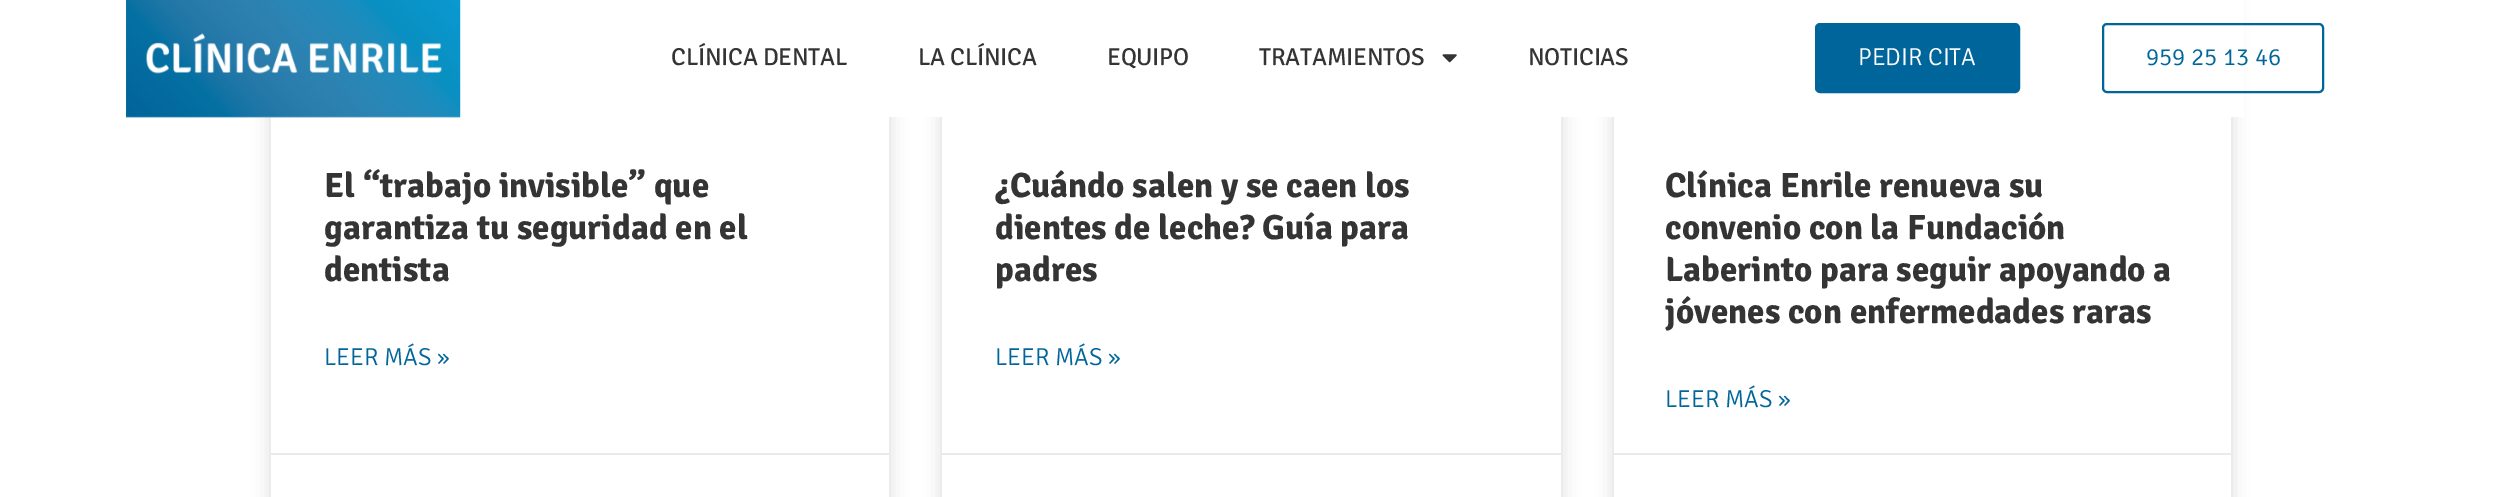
%!PS-Adobe-3.0
%%BoundingBox: 0 0 2501 497
%%LanguageLevel: 3
%%Pages: 1
%%EndComments
%%BeginProlog
/m { moveto } bind def
/l { lineto } bind def
/c { curveto } bind def
/h { closepath } bind def
/f { fill } bind def
/S { stroke } bind def
/q { gsave } bind def
/Q { grestore } bind def
/w { setlinewidth } bind def
/fn { [ exch dup neg 0 0 3 -1 roll 0 0 ] selectfont } def
/tx { moveto show } def
/bx { rectfill } def
/al { dup .setfillconstantalpha .setstrokeconstantalpha } def
/rr { 5 dict begin { /r /h /w /y /x } { exch def } forall
  x r add y moveto x w add y 2 copy h add r arct x w add y h add x 1 index r arct
  x y h add x y r arct x y 2 copy exch w add exch r arct closepath end } def
/sh { 12 dict begin { /a /b /q /h /w /y /x } { exch def } forall gsave /was 0 def
  9 -2 -9 { dup b mul 4 div /e exch def 1 sub .425 mul 2.718 exch exp 1 add a .99 .min exch div /now exch def
    1 1 now sub 1 was sub div sub al /was now def
    w h .min e 2 mul add 0 gt { x e sub y e sub w e 2 mul add h e 2 mul add
      q e add b .6 mul add w h .min 2 div e add .min 0 .max rr fill } if } for grestore end } def
/im { 5 dict begin { /h /w /y /x /name } { exch def } forall
  gsave x y translate w h scale
  w h 8 [w 0 0 h 0 0] name (r) file false 3 colorimage grestore end } def
%%EndProlog
%%BeginSetup
<< /PageSize [2501 497] /PageUsesTransparency true >> setpagedevice
%%EndSetup
%%Page: 1 1
0 .pushpdf14devicefilter
0 497 translate 1 -1 scale
4 setmiterlimit
1 setgray
0 0 2501 497 bx
0 setgray
271 -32 618 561 5 9 0.15 sh
q
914 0 m 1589 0 l 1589 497 l 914 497 l h 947 -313 m 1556 -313 l 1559 -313 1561 -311 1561 -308 c 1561 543 l 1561 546 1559 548 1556 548 c 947 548 l 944 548 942 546 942 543 c 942 -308 l 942 -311 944 -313 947 -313 c h eoclip newpath
942 -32 619 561 5 9 0.15 sh
Q
q
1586 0 m 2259 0 l 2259 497 l 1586 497 l h 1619 -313 m 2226 -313 l 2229 -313 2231 -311 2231 -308 c 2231 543 l 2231 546 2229 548 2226 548 c 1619 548 l 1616 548 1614 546 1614 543 c 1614 -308 l 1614 -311 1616 -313 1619 -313 c h eoclip newpath
1614 -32 617 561 5 9 0.15 sh
Q
1 setgray
258 0 1986 117 bx
271 117 618 380 bx
(image0.raw) 126 0 335 118 im
/Signika-Regular 24.5 fn
0.204 setgray
671 65 m -0.25 0 (CLÍNICA DENTAL) ashow
918 65 m -0.25 0 (LA CLÍNICA) ashow
1107 65 m -0.25 0 (EQUIPO) ashow
1259 65 m -0.25 0 (TRATAMIENTOS) ashow
(image1.raw) 1442 54 15 9 im
1528 65 m -0.25 0 (NOTICIAS) ashow
0 0.396 0.604 setrgbcolor
1816 24 203 68 4 rr q f Q
2 w
S
/Signika-Light 24.5 fn
1 setgray
(PEDIR CITA) 1858 65 tx
0 0.396 0.604 setrgbcolor
2103 24 220 68 4 rr S
(959 25 13 46) 2146 65 tx
/Signika-Bold 35 fn
0.204 setgray
(El “trabajo invisible” que) 324 197 tx
(garantiza tu seguridad en el) 324 239 tx
(dentista) 324 281 tx
/Signika-Light 24.5 fn
0 0.396 0.604 setrgbcolor
(LEER MÁS ») 324 365 tx
0.918 setgray
271 453 618 2 bx
/Signika-Bold 35 fn
0.204 setgray
(¿Cuándo salen y se caen los) 995 197 tx
(dientes de leche? Guía para) 995 239 tx
(padres) 995 281 tx
/Signika-Light 24.5 fn
0 0.396 0.604 setrgbcolor
(LEER MÁS ») 995 365 tx
0.918 setgray
942 453 619 2 bx
/Signika-Bold 35 fn
0.204 setgray
(Clínica Enrile renueva su) 1665 197 tx
(convenio con la Fundación) 1665 239 tx
(Laberinto para seguir apoyando a) 1665 281 tx
(jóvenes con enfermedades raras) 1665 323 tx
/Signika-Light 24.5 fn
0 0.396 0.604 setrgbcolor
(LEER MÁS ») 1665 407 tx
0.918 setgray
1614 453 617 2 bx
.poppdf14devicefilter showpage
%%EOF
